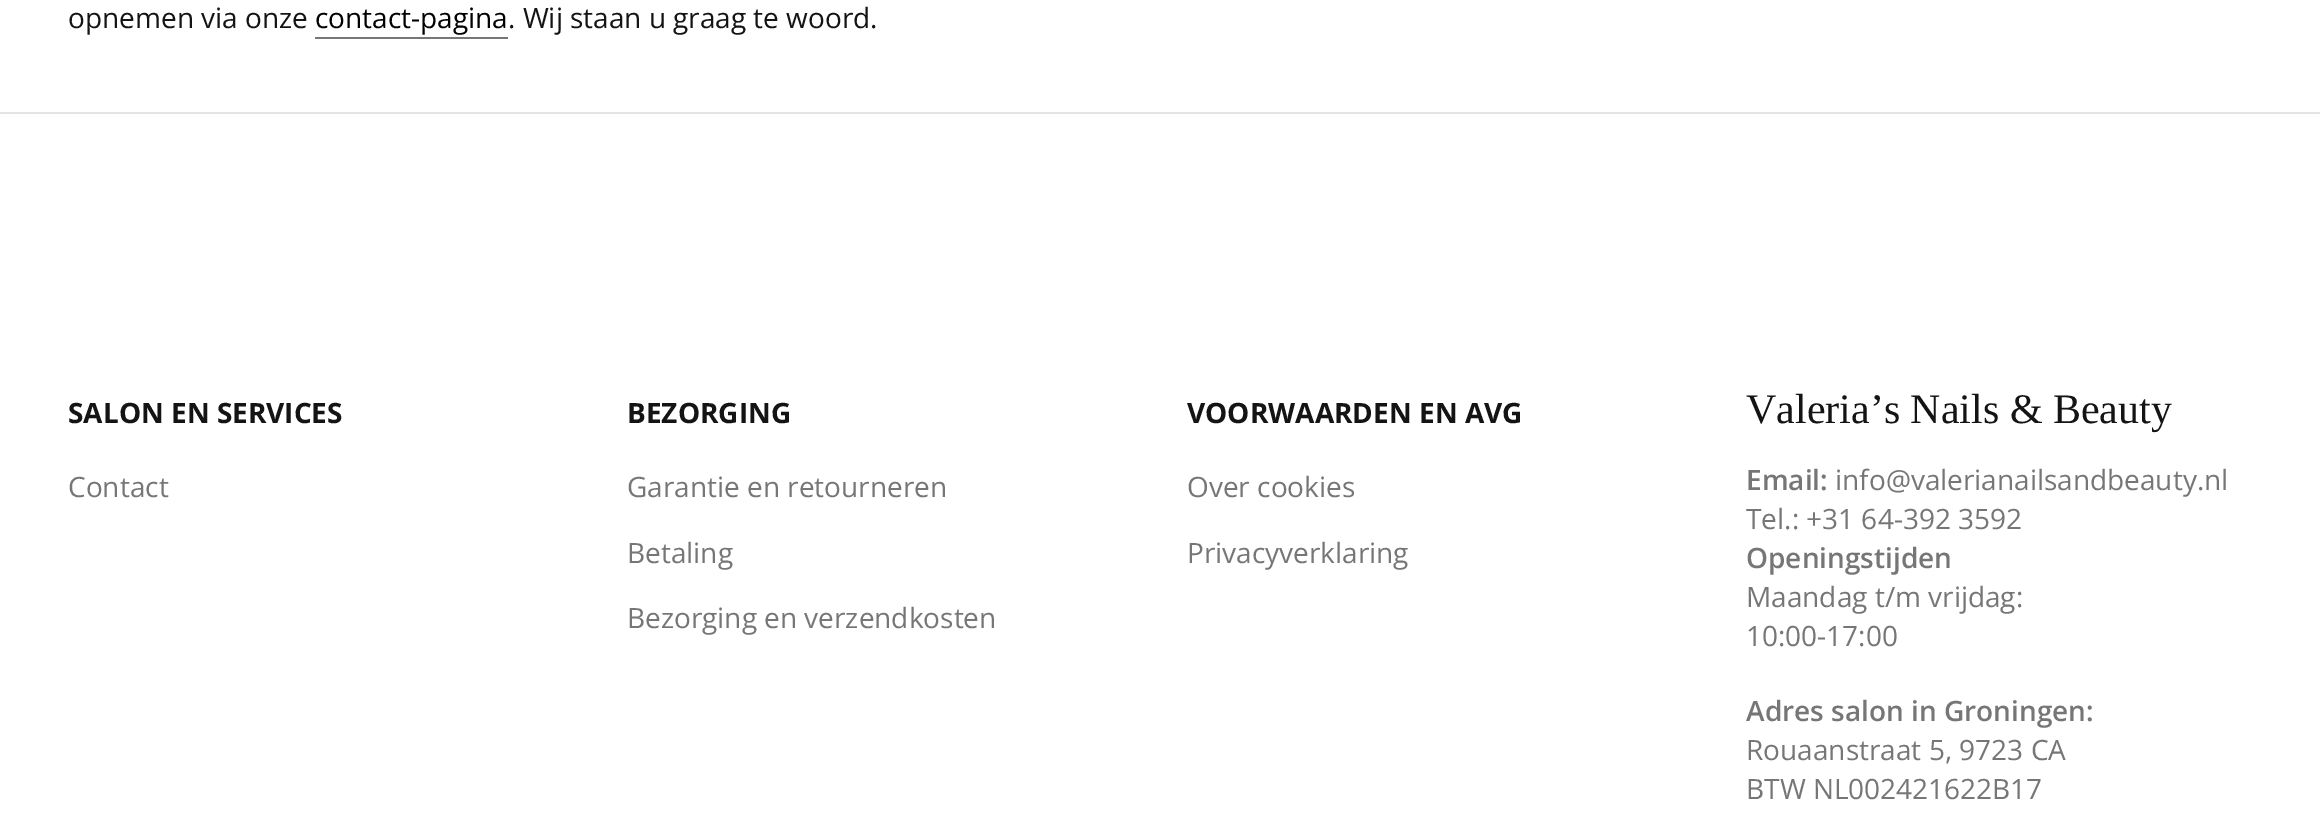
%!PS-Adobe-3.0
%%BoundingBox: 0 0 2320 825
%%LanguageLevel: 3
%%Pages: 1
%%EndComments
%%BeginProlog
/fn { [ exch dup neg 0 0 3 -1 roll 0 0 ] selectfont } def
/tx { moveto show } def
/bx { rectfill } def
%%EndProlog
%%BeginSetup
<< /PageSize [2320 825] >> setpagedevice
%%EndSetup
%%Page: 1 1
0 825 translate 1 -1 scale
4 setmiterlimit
1 setgray
0 0 2320 825 bx
0.894 setgray
0 112 2320 2 bx
/OpenSans-Regular 28 fn
0.078 setgray
(opnemen via onze) 68 28 tx
0 setgray
(contact-pagina) 315 28 tx
0.467 setgray
315 37 193 2 bx
0.078 setgray
(. Wij staan u graag te woord.) 508 28 tx
/OpenSans-Bold 28 fn
(SALON EN SERVICES) 68 423 tx
/OpenSans-Regular 28 fn
0.463 setgray
(Contact) 68 497 tx
/OpenSans-Bold 28 fn
0.078 setgray
(BEZORGING) 627 423 tx
/OpenSans-Regular 28 fn
0.463 setgray
(Garantie en retourneren) 627 497 tx
(Betaling) 627 563 tx
(Bezorging en verzendkosten) 627 628 tx
/OpenSans-Bold 28 fn
0.078 setgray
(VOORWAARDEN EN AVG) 1187 423 tx
/OpenSans-Regular 28 fn
0.463 setgray
(Over cookies) 1187 497 tx
(Privacyverklaring) 1187 563 tx
/LiberationSerif-Regular 42 fn
0.078 setgray
(Valeria’s Nails & Beauty) 1746 423 tx
/OpenSans-SemiBold 28 fn
0.463 setgray
(Email:) 1746 490 tx
/OpenSans-Regular 28 fn
(info@valerianailsandbeauty.nl) 1835 490 tx
(Tel.: +31 64-392 3592) 1746 529 tx
/OpenSans-SemiBold 28 fn
(Openingstijden) 1746 568 tx
/OpenSans-Regular 28 fn
(Maandag t/m vrijdag:) 1746 607 tx
(10:00-17:00) 1746 646 tx
/OpenSans-SemiBold 28 fn
(Adres salon in Groningen:) 1746 721 tx
/OpenSans-Regular 28 fn
(Rouaanstraat 5, 9723 CA) 1746 760 tx
(BTW NL002421622B17) 1746 799 tx
showpage
%%EOF
